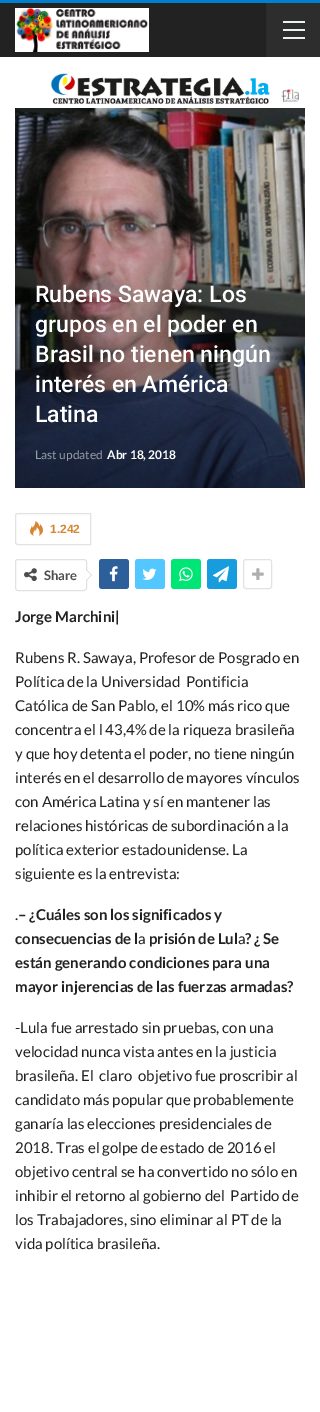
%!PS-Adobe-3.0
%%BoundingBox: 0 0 320 1412
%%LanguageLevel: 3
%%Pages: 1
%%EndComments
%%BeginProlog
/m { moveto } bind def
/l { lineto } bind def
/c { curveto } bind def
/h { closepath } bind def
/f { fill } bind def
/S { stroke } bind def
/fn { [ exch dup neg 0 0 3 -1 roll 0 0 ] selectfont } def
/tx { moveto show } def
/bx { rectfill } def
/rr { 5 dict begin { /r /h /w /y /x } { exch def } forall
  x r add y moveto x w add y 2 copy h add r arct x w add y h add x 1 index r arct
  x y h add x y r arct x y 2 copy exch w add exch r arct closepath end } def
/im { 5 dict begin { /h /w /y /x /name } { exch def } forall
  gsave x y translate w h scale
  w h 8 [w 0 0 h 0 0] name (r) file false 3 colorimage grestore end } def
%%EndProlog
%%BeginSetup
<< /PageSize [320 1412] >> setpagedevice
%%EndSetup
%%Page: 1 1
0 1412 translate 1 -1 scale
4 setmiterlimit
0 0.502 0.808 setrgbcolor
0 0 320 1412 bx
1 setgray
0 57 320 1355 bx
0.133 setgray
0 3 266 54 bx
(image0.raw) 15 8 134 44 im
0.176 setgray
267 3 53 54 bx
0.165 setgray
266 3 1 54 bx
0.925 0.941 0.945 setrgbcolor
283 29 22 2 bx
283 21 22 2 bx
283 37 22 2 bx
(image1.raw) 50 73 249 32 im
(image2.raw) 15 108 290 380 im
/Roboto-Medium 23 fn
1 setgray
(Rubens Sawaya: Los) 35 302 tx
(grupos en el poder en) 35 332 tx
(Brasil no tienen ningún) 35 362 tx
(interés en América) 35 392 tx
(Latina) 35 422 tx
/Lato-Regular 12 fn
0.596 0.612 0.655 setrgbcolor
(Last updated) 35 459 tx
/Lato-Bold 12 fn
1 setgray
(Abr 18, 2018) 107 459 tx
0.886 setgray
18 513.5 m 90.5 513.5 l 90.5 544.5 l 18 544.5 l 16.5 544.5 15.5 543.5 15.5 542 c 15.5 516 l 15.5 514.5 16.5 513.5 18 513.5 c h S
(image3.raw) 30 521 13 15 im
/LiberationSans-Bold 12 fn
0.847 0.522 0.192 setrgbcolor
(1.242) 50 533 tx
0.886 setgray
15.5 559.5 71 31 2.5 rr S
(image4.raw) 24 568 13 14 im
/Lato-Bold 13 fn
0.302 setgray
(Share) 44 580 tx
0.843 setgray
86 581 m 86 569 l 92 575 l h f
1 setgray
86 580 m 86 570 l 91 575 l h f
0.176 0.373 0.604 setrgbcolor
99 559 30 30 3 rr f
(image5.raw) 109 566 9 16 im
0.325 0.78 1 setrgbcolor
135 559 30 30 3 rr f
(image6.raw) 142 568 15 12 im
0 0.902 0.463 setrgbcolor
171 559 30 30 3 rr f
(image7.raw) 179 567 14 15 im
0.09 0.612 0.871 setrgbcolor
207 559 30 30 3 rr f
(image8.raw) 213 566 16 17 im
0.886 setgray
243.5 559.5 28 29 2.5 rr S
(image9.raw) 252 568 12 12 im
/Lato-Bold 15 fn
0.133 setgray
(Jorge Marchini|) 15 622 tx
/Lato-Regular 15 fn
(Rubens R. Sawaya, Profesor de Posgrado en) 15 663 tx
(Política de la Universidad  Pontificia) 15 687 tx
(Católica de San Pablo, el 10% más rico que) 15 711 tx
(concentra el l 43,4% de la riqueza brasileña) 15 735 tx
(y que hoy detenta el poder, no tiene ningún) 15 759 tx
(interés en el desarrollo de mayores vínculos) 15 783 tx
(con América Latina y sí en mantener las) 15 807 tx
(relaciones históricas de subordinación a la) 15 831 tx
(política exterior estadounidense. La) 15 855 tx
(siguiente es la entrevista:) 15 879 tx
(.) 15 920 tx
/Lato-Bold 15 fn
(– ¿Cuáles son los significados y) 18 920 tx
(consecuencias de l) 15 944 tx
/Lato-Regular 15 fn
(a) 138 944 tx
/Lato-Bold 15 fn
(prisión de Lul) 149 944 tx
/Lato-Regular 15 fn
(a) 238 944 tx
/Lato-Bold 15 fn
(? ¿ Se) 245 944 tx
(están generando condiciones para una) 15 968 tx
(mayor injerencias de las fuerzas armadas?) 15 992 tx
/Lato-Regular 15 fn
(-Lula fue arrestado sin pruebas, con una) 15 1033 tx
(velocidad nunca vista antes en la justicia) 15 1057 tx
(brasileña. El  claro  objetivo fue proscribir al) 15 1081 tx
(candidato más popular que probablemente) 15 1105 tx
(ganaría las elecciones presidenciales de) 15 1129 tx
(2018. Tras el golpe de estado de 2016 el) 15 1153 tx
(objetivo central se ha convertido no sólo en) 15 1177 tx
(inhibir el retorno al gobierno del  Partido de) 15 1201 tx
(los Trabajadores, sino eliminar al PT de la) 15 1225 tx
(vida política brasileña.) 15 1249 tx
showpage
%%EOF
